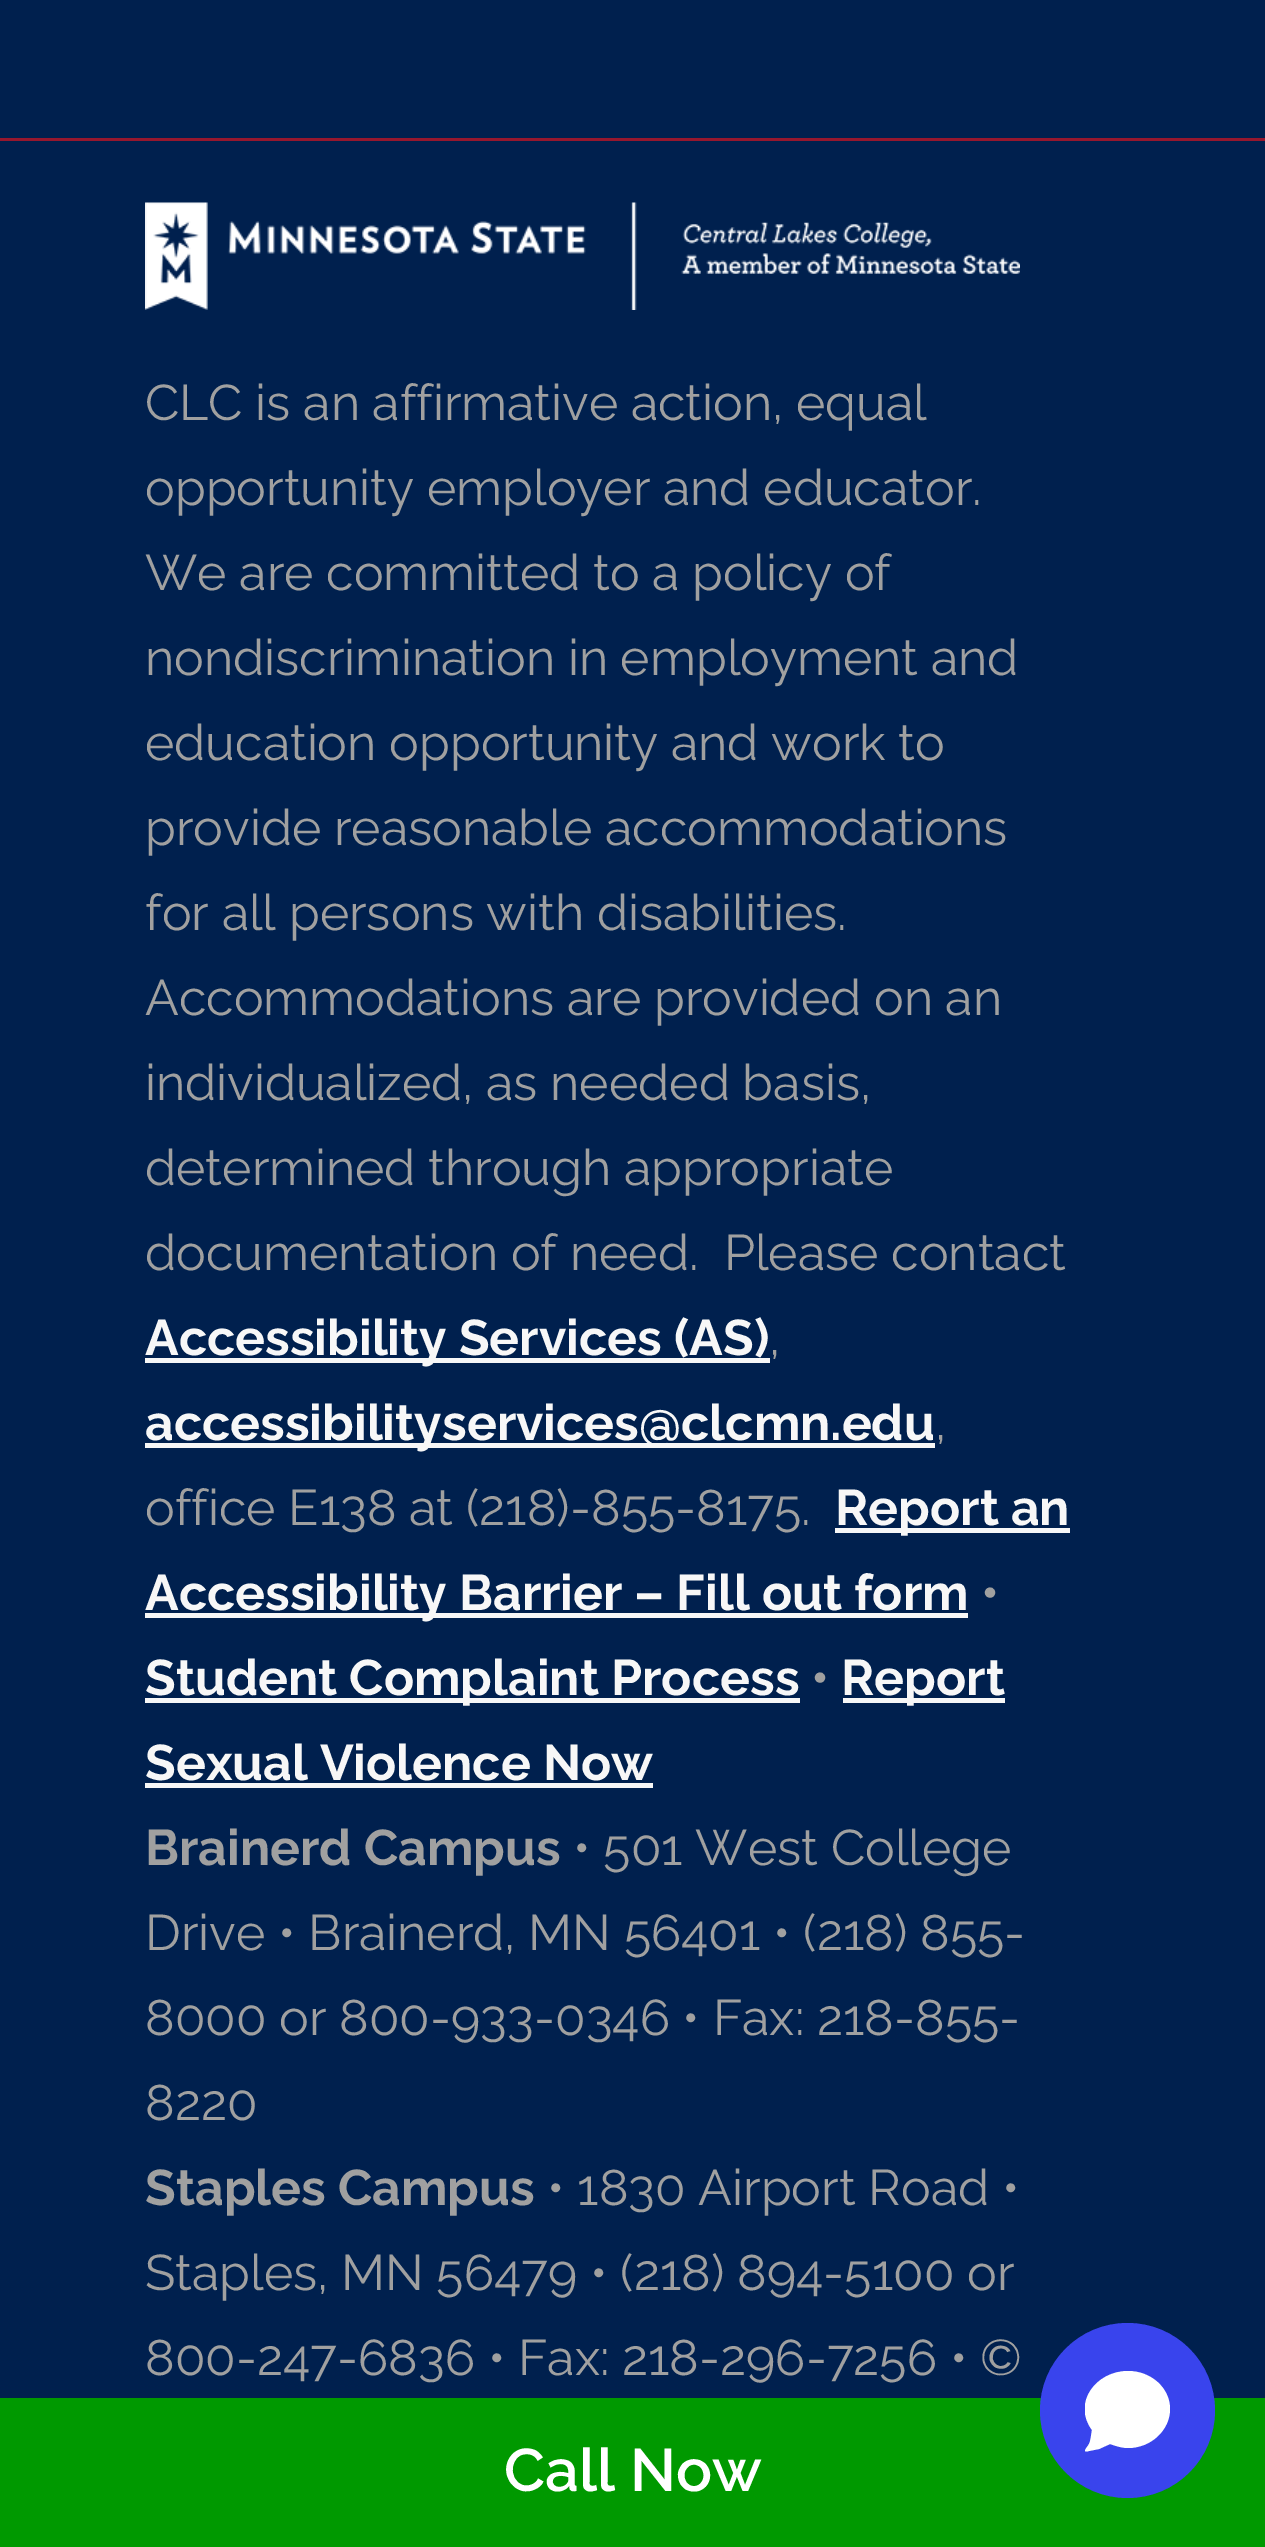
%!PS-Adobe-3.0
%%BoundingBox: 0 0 1265 2547
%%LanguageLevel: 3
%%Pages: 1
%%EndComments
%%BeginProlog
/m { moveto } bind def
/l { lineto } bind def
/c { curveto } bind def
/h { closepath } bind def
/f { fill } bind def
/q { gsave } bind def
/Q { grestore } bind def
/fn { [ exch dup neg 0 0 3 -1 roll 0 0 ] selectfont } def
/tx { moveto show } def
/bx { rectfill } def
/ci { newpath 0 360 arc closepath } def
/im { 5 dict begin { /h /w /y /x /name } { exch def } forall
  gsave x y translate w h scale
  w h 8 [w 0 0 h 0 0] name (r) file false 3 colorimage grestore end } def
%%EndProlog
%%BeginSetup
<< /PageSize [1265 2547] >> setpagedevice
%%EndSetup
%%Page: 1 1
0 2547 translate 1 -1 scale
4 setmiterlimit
0 0.125 0.306 setrgbcolor
0 0 1265 2547 bx
0.588 0.09 0.18 setrgbcolor
0 138 1265 3 bx
(image0.raw) 145 202 875 108 im
/Raleway-Regular 50 fn
0.627 setgray
(CLC is an affirmative action, equal) 145 420 tx
(opportunity employer and educator.) 145 505 tx
(We are committed to a policy of) 145 590 tx
(nondiscrimination in employment and) 145 675 tx
(education opportunity and work to) 145 760 tx
(provide reasonable accommodations) 145 845 tx
(for all persons with disabilities.) 145 930 tx
(Accommodations are provided on an) 145 1015 tx
(individualized, as needed basis,) 145 1100 tx
(determined through appropriate) 145 1185 tx
(documentation of need.  Please contact) 145 1270 tx
0.969 setgray
145 1358 625 5 bx
/Raleway-Bold 50 fn
(Accessibility Services \(AS\)) 145 1355 tx
/Raleway-Regular 50 fn
0.627 setgray
(,) 769 1355 tx
0.969 setgray
145 1443 790 5 bx
/Raleway-Bold 50 fn
(accessibilityservices@clcmn.edu) 145 1440 tx
/Raleway-Regular 50 fn
0.627 setgray
(,) 935 1440 tx
(office E138 at \(218\)-855-8175.) 145 1525 tx
0.969 setgray
835 1528 235 5 bx
/Raleway-Bold 50 fn
(Report an) 835 1525 tx
145 1613 823 5 bx
(Accessibility Barrier – Fill out form) 145 1610 tx
0.627 setgray
(•) 981 1610 tx
0.969 setgray
145 1698 655 5 bx
(Student Complaint Process) 145 1695 tx
0.627 setgray
(•) 811 1695 tx
0.969 setgray
843 1698 162 5 bx
(Report) 841 1695 tx
(Sexual Violence Now) 145 1780 tx
145 1783 508 5 bx
0.627 setgray
(Brainerd Campus) 145 1865 tx
/Raleway-Regular 50 fn
(• 501 West College) 573 1865 tx
(Drive • Brainerd, MN 56401 • \(218\) 855-) 145 1950 tx
(8000 or 800-933-0346 • Fax: 218-855-) 145 2035 tx
(8220) 145 2120 tx
/Raleway-Bold 50 fn
(Staples Campus) 145 2205 tx
/Raleway-Regular 50 fn
(• 1830 Airport Road •) 547 2205 tx
(Staples, MN 56479 • \(218\) 894-5100 or) 145 2290 tx
(800-247-6836 • Fax: 218-296-7256 • ©) 145 2375 tx
0 0.6 0 setrgbcolor
0 2398 1265 149 bx
/Raleway-SemiBold 60 fn
1 setgray
(Call Now) 504 2491 tx
0.224 0.267 0.929 setrgbcolor
1127.5 2410.5 87.5 ci f
q
1085 2368 88 87 rectclip
1 setgray
1128 2371 m 1096 2371 1072 2403 1092 2430 c 1091 2435 1091 2440 1089 2444 c 1087 2448 1081 2453 1089 2451 c 1099 2449 l 1110 2444 l 1116 2446 1122 2448 1128 2448 c 1151 2448 1170 2430 1170 2409 c 1170 2388 1151 2371 1128 2371 c h f
Q
showpage
%%EOF
